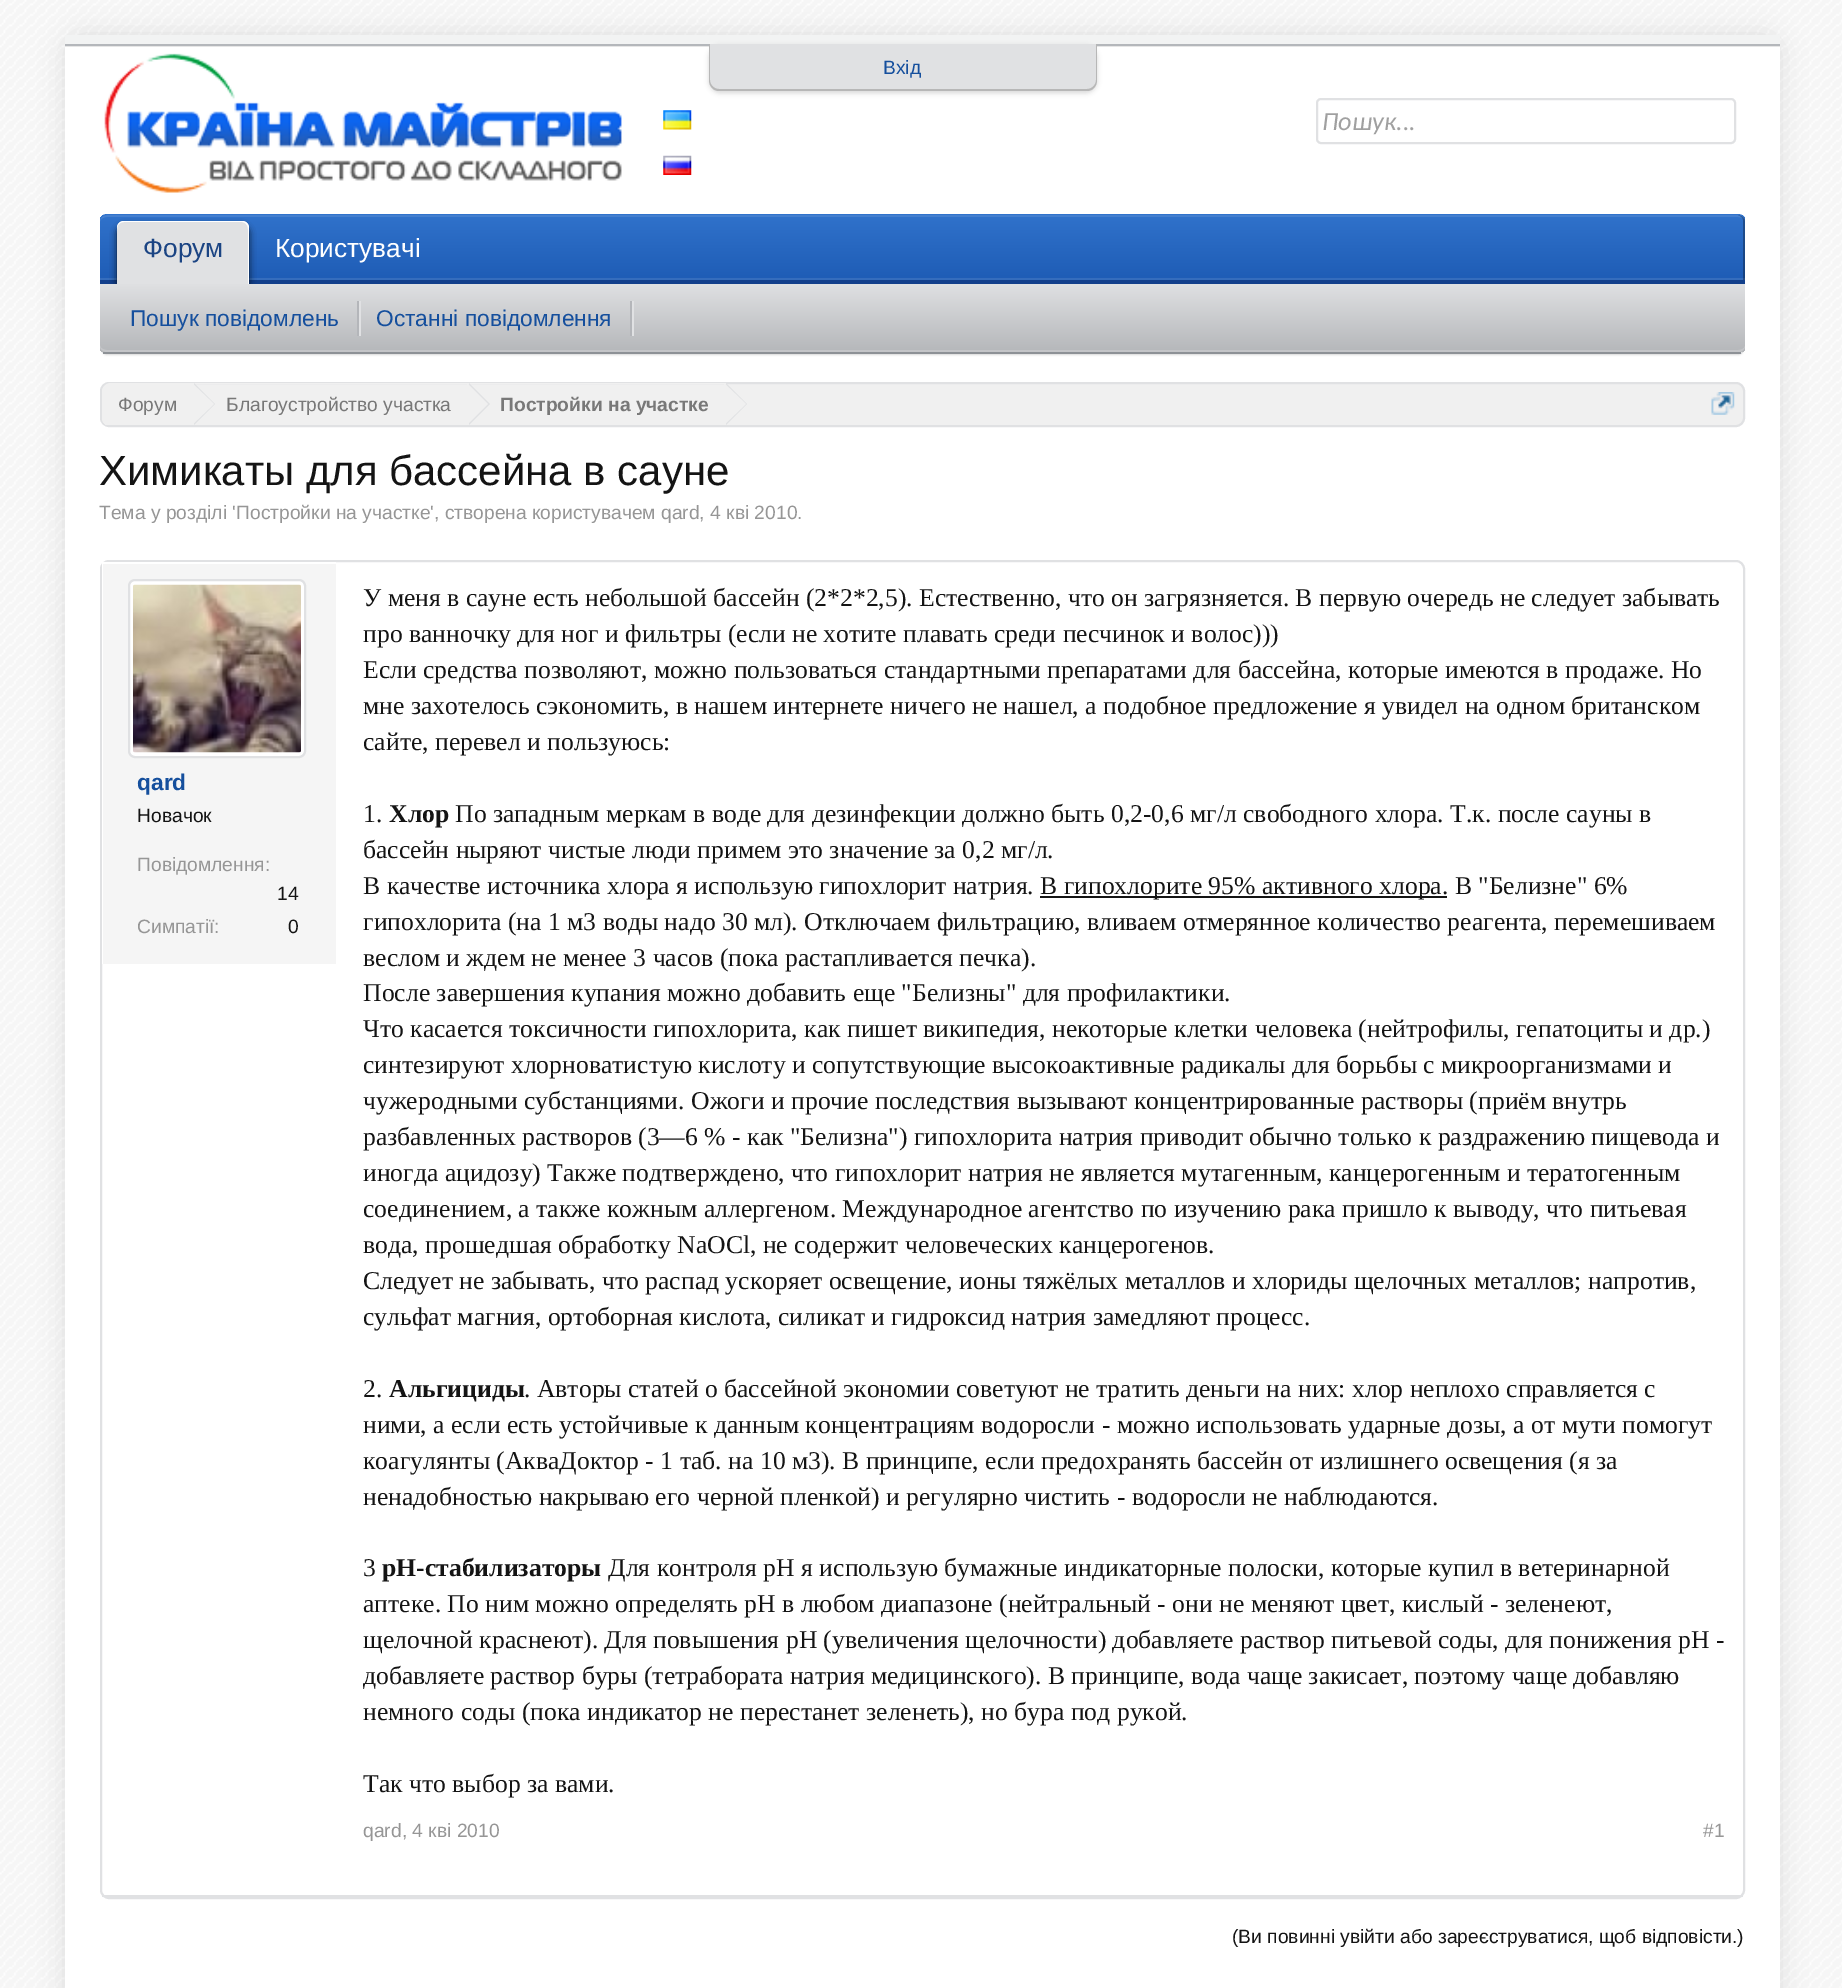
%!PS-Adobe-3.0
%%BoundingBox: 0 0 1842 1988
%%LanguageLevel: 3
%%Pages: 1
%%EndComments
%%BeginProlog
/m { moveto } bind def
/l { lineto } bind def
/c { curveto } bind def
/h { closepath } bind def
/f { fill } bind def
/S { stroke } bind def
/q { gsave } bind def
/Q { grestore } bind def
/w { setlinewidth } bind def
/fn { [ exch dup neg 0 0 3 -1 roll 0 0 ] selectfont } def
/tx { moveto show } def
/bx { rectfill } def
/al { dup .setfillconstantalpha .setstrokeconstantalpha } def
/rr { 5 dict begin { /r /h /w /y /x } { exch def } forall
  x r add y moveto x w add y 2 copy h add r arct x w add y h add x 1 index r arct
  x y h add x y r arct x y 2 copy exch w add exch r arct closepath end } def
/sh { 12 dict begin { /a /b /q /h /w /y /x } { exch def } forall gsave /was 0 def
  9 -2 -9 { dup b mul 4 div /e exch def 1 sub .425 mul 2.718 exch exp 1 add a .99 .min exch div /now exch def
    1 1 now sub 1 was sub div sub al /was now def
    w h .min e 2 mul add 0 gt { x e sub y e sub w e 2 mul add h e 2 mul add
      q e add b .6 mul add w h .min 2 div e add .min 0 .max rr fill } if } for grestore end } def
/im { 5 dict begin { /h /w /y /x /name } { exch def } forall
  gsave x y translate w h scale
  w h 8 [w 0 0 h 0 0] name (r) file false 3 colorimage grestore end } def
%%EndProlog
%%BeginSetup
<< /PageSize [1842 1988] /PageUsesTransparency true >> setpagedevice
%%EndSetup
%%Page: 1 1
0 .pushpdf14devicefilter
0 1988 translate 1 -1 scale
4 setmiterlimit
1 setgray
0 0 1842 1988 bx
(image0.raw) 0 0 1842 1988 im
0 setgray
65 35 1715 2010 18 13 0.1 sh
0.902 setgray
65 46 m 65 47 l 1780 47 l 1780 37 l 1780 46 l h f
0.949 0.953 0.953 setrgbcolor
65 35 1715 9 bx
0.706 0.718 0.733 setrgbcolor
65 44 1715 2 bx
1 setgray
65 47 1715 1941 bx
0 setgray
709 46 388 47 11 2.5 0.15 sh
0.878 0.882 0.89 setrgbcolor
709 44 m 1097 44 l 1097 80 l 1097 86 1092 91 1086 91 c 720 91 l 714 91 709 86 709 80 c h f
0.718 setgray
709 44 m 1097 44 l 1097 80 l 1097 86 1093 91 1087 91 c 719 91 l 713 91 709 86 709 80 c h 710 44 m 1096 44 l 1096 80 l 1096 85 1092 89 1087 89 c 719 89 l 714 89 710 85 710 80 c h eofill
/LiberationSans-Regular 19.25 fn
0.082 0.31 0.616 setrgbcolor
(Вхід) 883 74 tx
(image1.raw) 104 53 518 140 im
(image2.raw) 663 110 29 20 im
(image3.raw) 663 155 29 20 im
0.878 0.882 0.89 setrgbcolor
2 w
1317 99 418 44 4 rr S
/Carlito-Italic 26.25 fn
0.627 setgray
(Пошук...) 1322 130 tx
q
107 214 m 1738 214 l 1742 214 1745 217 1745 221 c 1745 284 l 100 284 l 100 221 l 100 217 103 214 107 214 c h clip newpath
q 100 215 m 1745 215 l 1745 278 l 100 278 l h clip newpath
<< /ShadingType 2 /ColorSpace /DeviceRGB /Coords [922 215 922 280] /Extend [true true] /Function << /FunctionType 2 /Domain [0 1] /C0 [0.188 0.447 0.796] /C1 [0.118 0.361 0.71] /N 1 >> >> shfill Q
Q
0.208 0.427 0.741 setrgbcolor
100 219 m 100 280 l 1745 280 l 1745 278 l 100 278 l h f
0.1 al
1 setgray
107 217 m 1738 217 l 1741 217 1744 218 1745 221 c 1745 220 l 1745 218 1742 215 1738 215 c 107 215 l 103 215 100 218 100 220 c 100 280 l 100 222 l 100 219 103 217 107 217 c h f
0.3 al
0 setgray
1743 280 m 1745 280 l 1745 220 l 1745 218 1742 215 1738 215 c 1741 216 1743 218 1743 220 c h f
1 al
0.192 0.451 0.8 setrgbcolor
107 214 m 1738 214 l 1741 214 1745 216 1745 219 c 1744 217 1741 215 1738 215 c 107 215 l 103 215 100 218 100 220 c 100 217 103 214 107 214 c h f
0.071 0.247 0.545 setrgbcolor
100 280 1645 4 bx
0 setgray
117 226 132 63 7 3.5 0.8 sh
0.878 0.882 0.89 setrgbcolor
124 221 m 242 221 l 246 221 249 224 249 228 c 249 284 l 117 284 l 117 228 l 117 224 120 221 124 221 c h f
1 setgray
124 222 m 242 222 l 245 222 248 225 248 229 c 248 284 l 249 284 l 249 228 l 249 224 246 221 242 221 c 124 221 l 120 221 117 224 117 228 c 117 229 l 117 225 120 222 124 222 c h f
/LiberationSans-Regular 26.25 fn
0.106 0.267 0.514 setrgbcolor
(Форум) 143 257 tx
0 setgray
102 289 1641 66 5 1 0.15 sh
q
100 284 m 1745 284 l 1745 347 l 1745 351 1742 354 1738 354 c 107 354 l 103 354 100 351 100 347 c h clip newpath
q 100 284 m 1745 284 l 1745 352 l 100 352 l h clip newpath
<< /ShadingType 2 /ColorSpace /DeviceRGB /Coords [922 283 922 352] /Extend [true true] /Function << /FunctionType 2 /Domain [0 1] /C0 [0.878 0.882 0.89] /C1 [0.71 0.718 0.729] /N 1 >> >> shfill Q
q 100 352 m 1745 352 l 1745 354 l 100 354 l h clip newpath
<< /ShadingType 2 /ColorSpace /DeviceRGB /Coords [922 352 922 420] /Extend [true true] /Function << /FunctionType 2 /Domain [0 1] /C0 [0.878 0.882 0.89] /C1 [0.71 0.718 0.729] /N 1 >> >> shfill Q
Q
0.2 al
1 setgray
100 284 m 100 346 l 100 349 103 352 107 352 c 1738 352 l 1742 352 1745 349 1745 346 c 1744 349 1741 350 1738 350 c 107 350 l 103 350 100 348 100 345 c h f
1 al
0.553 0.569 0.588 setrgbcolor
103 352 1638 2 bx
0.878 0.882 0.89 setrgbcolor
359 301 2 35 bx
0.706 0.714 0.729 setrgbcolor
357 301 2 35 bx
/LiberationSans-Regular 22.75 fn
0.082 0.31 0.616 setrgbcolor
(Пошук повідомлень) 130 326 tx
0.878 0.882 0.89 setrgbcolor
632 301 2 35 bx
0.706 0.714 0.729 setrgbcolor
630 301 2 35 bx
0.082 0.31 0.616 setrgbcolor
(Останні повідомлення) 376 326 tx
/LiberationSans-Regular 26.25 fn
1 setgray
(Користувачі) 275 257 tx
0.941 setgray
101 383 1643 43 8 rr q f Q
0.878 0.882 0.89 setrgbcolor
S
q
102 383 1641 42 7 rr clip newpath
0.941 setgray
111 383 m 194 383 l 194 427 l 111 427 l 106 427 102 423 102 418 c 102 392 l 102 387 106 383 111 383 c h f
Q
/LiberationSans-Regular 19.25 fn
0.471 setgray
(Форум) 118 411 tx
0.941 setgray
194 383 532 1 bx
0.878 0.882 0.89 setrgbcolor
194 425 m 194 383 l 215 404 l h f
0.941 setgray
192 425 m 192 383 l 214 404 l h f
0.471 setgray
(Благоустройство участка) 226 411 tx
0.878 0.882 0.89 setrgbcolor
469 425 m 469 383 l 490 404 l h f
0.941 setgray
467 425 m 467 383 l 488 404 l h f
/LiberationSans-Bold 19.25 fn
0.471 setgray
(Постройки на участке) 500 411 tx
0.878 0.882 0.89 setrgbcolor
726 425 m 726 383 l 747 404 l h f
0.941 setgray
724 425 m 724 383 l 746 404 l h f
(image4.raw) 1711 392 24 23 im
/LiberationSans-Regular 42 fn
0.078 setgray
(Химикаты для бассейна в сауне) 99 485 tx
/LiberationSans-Regular 19.25 fn
0.588 setgray
(Тема у розділі 'Постройки на участке', створена користувачем qard, 4 кві 2010.) 99 519 tx
0.878 0.882 0.89 setrgbcolor
101 561 1643 1337 8 rr S
102 1895 1641 2 bx
0.961 setgray
103 564 233 400 bx
q
102 562 234 402 rectclip
1 setgray
-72 388 m 509 388 l 509 1138 l -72 1138 l h 103 564 m 338 564 l 338 966 l 103 966 l h eofill
Q
1 setgray
129 580 176 177 6 rr q f Q
0.878 0.882 0.89 setrgbcolor
S
(image5.raw) 133 584 168 169 im
/LiberationSans-Bold 22.75 fn
0.082 0.31 0.616 setrgbcolor
(qard) 137 790 tx
/LiberationSans-Regular 19.25 fn
0.078 setgray
(Новачок) 137 822 tx
0.588 setgray
(Повідомлення:) 137 871 tx
0.078 setgray
(14) 277 900 tx
0.588 setgray
(Симпатії:) 137 933 tx
0.078 setgray
(0) 288 933 tx
/LiberationSerif-Regular 25.67 fn
(У меня в сауне есть небольшой бассейн \(2*2*2,5\). Естественно, что он загрязняется. В первую очередь не следует забывать) 363 606 tx
(про ванночку для ног и фильтры \(если не хотите плавать среди песчинок и волос\)\)\)) 363 642 tx
(Если средства позволяют, можно пользоваться стандартными препаратами для бассейна, которые имеются в продаже. Но) 363 678 tx
(мне захотелось сэкономить, в нашем интернете ничего не нашел, а подобное предложение я увидел на одном британском) 363 714 tx
(сайте, перевел и пользуюсь:) 363 750 tx
(1.) 363 822 tx
/LiberationSerif-Bold 25.67 fn
(Хлор) 389 822 tx
/LiberationSerif-Regular 25.67 fn
(По западным меркам в воде для дезинфекции должно быть 0,2-0,6 мг/л свободного хлора. Т.к. после сауны в) 455 822 tx
(бассейн ныряют чистые люди примем это значение за 0,2 мг/л.) 363 858 tx
(В качестве источника хлора я использую гипохлорит натрия.) 363 894 tx
1040 896 407 2 bx
(В гипохлорите 95% активного хлора. В "Белизне" 6%) 1040 894 tx
(гипохлорита \(на 1 м3 воды надо 30 мл\). Отключаем фильтрацию, вливаем отмерянное количество реагента, перемешиваем) 363 930 tx
(веслом и ждем не менее 3 часов \(пока растапливается печка\).) 363 966 tx
(После завершения купания можно добавить еще "Белизны" для профилактики.) 363 1001 tx
(Что касается токсичности гипохлорита, как пишет википедия, некоторые клетки человека \(нейтрофилы, гепатоциты и др.\)) 363 1037 tx
(синтезируют хлорноватистую кислоту и сопутствующие высокоактивные радикалы для борьбы с микроорганизмами и) 363 1073 tx
(чужеродными субстанциями. Ожоги и прочие последствия вызывают концентрированные растворы \(приём внутрь) 363 1109 tx
(разбавленных растворов \(3—6 % - как "Белизна"\) гипохлорита натрия приводит обычно только к раздражению пищевода и) 363 1145 tx
(иногда ацидозу\) Также подтверждено, что гипохлорит натрия не является мутагенным, канцерогенным и тератогенным) 363 1181 tx
(соединением, а также кожным аллергеном. Международное агентство по изучению рака пришло к выводу, что питьевая) 363 1217 tx
(вода, прошедшая обработку NaOCl, не содержит человеческих канцерогенов.) 363 1253 tx
(Следует не забывать, что распад ускоряет освещение, ионы тяжёлых металлов и хлориды щелочных металлов; напротив,) 363 1289 tx
(сульфат магния, ортоборная кислота, силикат и гидроксид натрия замедляют процесс.) 363 1325 tx
(2.) 363 1397 tx
/LiberationSerif-Bold 25.67 fn
(Альгициды) 389 1397 tx
/LiberationSerif-Regular 25.67 fn
(. Авторы статей о бассейной экономии советуют не тратить деньги на них: хлор неплохо справляется с) 524 1397 tx
(ними, а если есть устойчивые к данным концентрациям водоросли - можно использовать ударные дозы, а от мути помогут) 363 1433 tx
(коагулянты \(АкваДоктор - 1 таб. на 10 м3\). В принципе, если предохранять бассейн от излишнего освещения \(я за) 363 1469 tx
(ненадобностью накрываю его черной пленкой\) и регулярно чистить - водоросли не наблюдаются.) 363 1505 tx
(3) 363 1576 tx
/LiberationSerif-Bold 25.67 fn
(рН-стабилизаторы) 382 1576 tx
/LiberationSerif-Regular 25.67 fn
(Для контроля рН я использую бумажные индикаторные полоски, которые купил в ветеринарной) 608 1576 tx
(аптеке. По ним можно определять рН в любом диапазоне \(нейтральный - они не меняют цвет, кислый - зеленеют,) 363 1612 tx
(щелочной краснеют\). Для повышения рН \(увеличения щелочности\) добавляете раствор питьевой соды, для понижения рН -) 363 1648 tx
(добавляете раствор буры \(тетрабората натрия медицинского\). В принципе, вода чаще закисает, поэтому чаще добавляю) 363 1684 tx
(немного соды \(пока индикатор не перестанет зеленеть\), но бура под рукой.) 363 1720 tx
(Так что выбор за вами.) 363 1792 tx
/LiberationSans-Regular 19.25 fn
0.588 setgray
(qard, 4 кві 2010) 363 1837 tx
(#1) 1703 1837 tx
0.078 setgray
(\(Ви повинні увійти або зареєструватися, щоб відповісти.\)) 1232 1943 tx
.poppdf14devicefilter showpage
%%EOF
